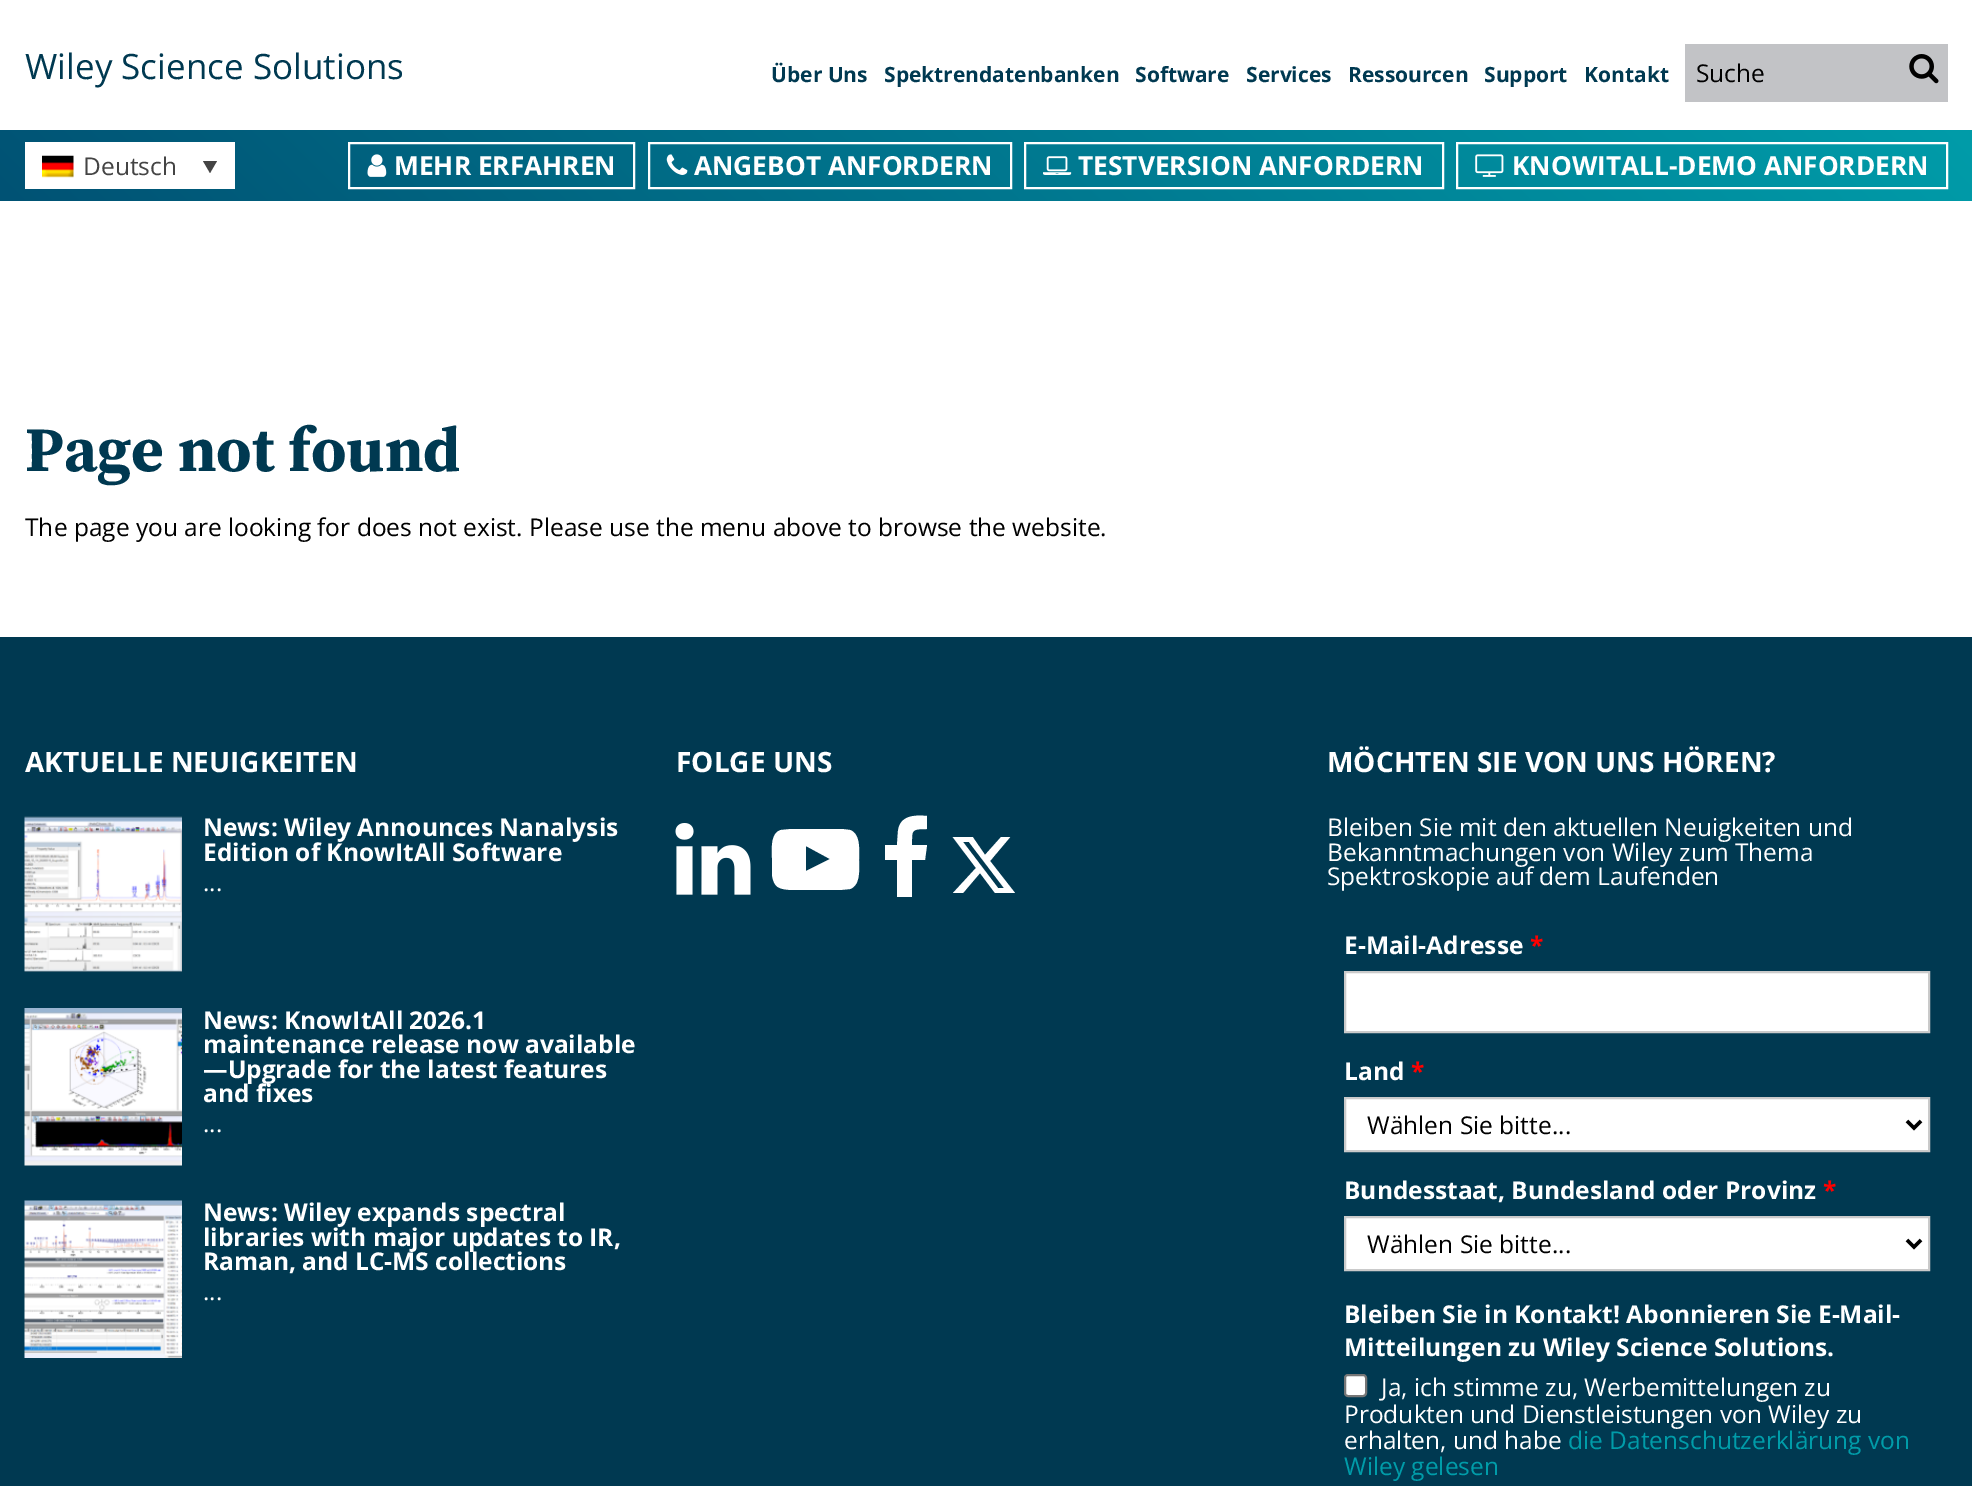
%!PS-Adobe-3.0
%%BoundingBox: 0 0 1972 1486
%%LanguageLevel: 3
%%Pages: 1
%%EndComments
%%BeginProlog
/m { moveto } bind def
/l { lineto } bind def
/c { curveto } bind def
/h { closepath } bind def
/f { fill } bind def
/S { stroke } bind def
/q { gsave } bind def
/Q { grestore } bind def
/w { setlinewidth } bind def
/fn { [ exch dup neg 0 0 3 -1 roll 0 0 ] selectfont } def
/tx { moveto show } def
/bx { rectfill } def
/rr { 5 dict begin { /r /h /w /y /x } { exch def } forall
  x r add y moveto x w add y 2 copy h add r arct x w add y h add x 1 index r arct
  x y h add x y r arct x y 2 copy exch w add exch r arct closepath end } def
/im { 5 dict begin { /h /w /y /x /name } { exch def } forall
  gsave x y translate w h scale
  w h 8 [w 0 0 h 0 0] name (r) file false 3 colorimage grestore end } def
%%EndProlog
%%BeginSetup
<< /PageSize [1972 1486] >> setpagedevice
%%EndSetup
%%Page: 1 1
0 1486 translate 1 -1 scale
4 setmiterlimit
1 setgray
0 0 1972 1486 bx
/OpenSans-Regular 35 fn
0 0.224 0.318 setrgbcolor
(Wiley Science Solutions) 25 79 tx
/OpenSans-Bold 21 fn
(Über Uns) 771 82 tx
(Spektrendatenbanken) 884 82 tx
(Software) 1135 82 tx
(Services) 1246 82 tx
(Ressourcen) 1348 82 tx
(Support) 1484 82 tx
(Kontakt) 1584 82 tx
0.761 0.765 0.776 setrgbcolor
1685 44 263 58 bx
/OpenSans-Regular 24.5 fn
0 setgray
(Suche) 1696 82 tx
(image0.raw) 1909 54 30 30 im
q 0 130 m 1972 130 l 1972 201 l 0 201 l h clip newpath
<< /ShadingType 2 /ColorSpace /DeviceRGB /Coords [475 676 1497 -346] /Extend [true true] /Function << /FunctionType 2 /Domain [0 1] /C0 [0 0.322 0.455] /C1 [0 0.612 0.663] /N 1 >> >> shfill Q
1 setgray
25 142 210 47 bx
(image1.raw) 42 155 32 23 im
0.267 setgray
(Deutsch) 83 175 tx
203 161 m 217 161 l 210 173 l h f
1 setgray
2 w
349 143 285 45 rectstroke
(image2.raw) 367 154 20 23 im
/OpenSans-Bold 26.25 fn
(MEHR ERFAHREN) 394 175 tx
649 143 362 45 rectstroke
(image3.raw) 666 154 22 21 im
(ANGEBOT ANFORDERN) 694 175 tx
1025 143 418 45 rectstroke
(image4.raw) 1043 156 29 19 im
(TESTVERSION ANFORDERN) 1078 175 tx
1457 143 490 45 rectstroke
(image5.raw) 1475 154 29 23 im
(KNOWITALL-DEMO ANFORDERN) 1512 175 tx
/SourceSerifPro-Bold 63 fn
0 0.224 0.318 setrgbcolor
(Page not found) 25 471 tx
/OpenSans-Regular 24.5 fn
0 setgray
(The page you are looking for does not exist. Please use the menu above to browse the website.) 25 536 tx
0 0.224 0.318 setrgbcolor
0 637 1972 849 bx
/OpenSans-Bold 28 fn
1 setgray
(AKTUELLE NEUIGKEITEN) 25 772 tx
(image6.raw) 24 816 158 156 im
/OpenSans-Bold 24.5 fn
(News: Wiley Announces Nanalysis) 203 836 tx
(Edition of KnowItAll Software) 203 861 tx
/OpenSans-Regular 24.5 fn
(...) 203 891 tx
(image7.raw) 24 1008 158 158 im
/OpenSans-Bold 24.5 fn
(News: KnowItAll 2026.1) 203 1029 tx
(maintenance release now available) 203 1053 tx
(—Upgrade for the latest features) 203 1078 tx
(and fixes) 203 1102 tx
/OpenSans-Regular 24.5 fn
(...) 203 1132 tx
(image8.raw) 24 1200 158 158 im
/OpenSans-Bold 24.5 fn
(News: Wiley expands spectral) 203 1221 tx
(libraries with major updates to IR,) 203 1246 tx
(Raman, and LC-MS collections) 203 1270 tx
/OpenSans-Regular 24.5 fn
(...) 203 1300 tx
/OpenSans-Bold 28 fn
(FOLGE UNS) 676 772 tx
(image9.raw) 675 823 76 72 im
806 871 m 830 859 l 806 846 l h 816 829 m 842 829 l 850 830 l 861 834 859 851 859 860 c 859 868 861 885 850 889 c 840 890 l 816 890 l 791 890 l 779 889 774 888 772 875 c 772 858 l 772 850 770 833 781 830 c 791 829 l h f
927 816 m 927 829 l 911 829 912 830 912 845 c 927 845 l 925 860 l 912 860 l 912 897 l 897 897 l 897 860 l 885 860 l 885 845 l 897 845 l 898 831 l 900 815 915 815 927 816 c h f
q
952 837 63 57 rectclip
1002 836 m 1011 836 l 990 861 l 1015 893 l 995 893 l 980 873 l 963 893 l 953 893 l 976 868 l 952 836 l 972 836 l 985 855 l h 998 888 m 1004 888 l 969 842 l 963 842 l h f
Q
(MÖCHTEN SIE VON UNS HÖREN?) 1327 772 tx
/OpenSans-Regular 24.5 fn
(Bleiben Sie mit den aktuellen Neuigkeiten und) 1327 836 tx
(Bekanntmachungen von Wiley zum Thema) 1327 861 tx
(Spektroskopie auf dem Laufenden) 1327 885 tx
/OpenSans-Bold 24.5 fn
(E-Mail-Adresse) 1344 954 tx
1 0 0 setrgbcolor
(*) 1530 954 tx
1 setgray
1345 972 m 1929 972 l 1929 1032 l 1345 1032 l h q f Q
0.792 setgray
S
1 setgray
(Land) 1344 1080 tx
1 0 0 setrgbcolor
(*) 1411 1080 tx
1 setgray
1345 1098 m 1929 1098 l 1929 1151 l 1345 1151 l h q f Q
0.792 setgray
S
0 setgray
3.5 w
1907 1121 m 1914 1128 l 1921 1121 l S
/OpenSans-Regular 24.5 fn
(Wählen Sie bitte...) 1367 1134 tx
/OpenSans-Bold 24.5 fn
1 setgray
(Bundesstaat, Bundesland oder Provinz) 1344 1199 tx
1 0 0 setrgbcolor
(*) 1823 1199 tx
1 setgray
1345 1217 m 1929 1217 l 1929 1270 l 1345 1270 l h q f Q
0.792 setgray
2 w
S
0 setgray
3.5 w
1907 1240 m 1914 1247 l 1921 1240 l S
/OpenSans-Regular 24.5 fn
(Wählen Sie bitte...) 1367 1253 tx
/OpenSans-Bold 24.5 fn
1 setgray
(Bleiben Sie in Kontakt! Abonnieren Sie E-Mail-) 1344 1323 tx
(Mitteilungen zu Wiley Science Solutions.) 1344 1356 tx
1345 1375 21 21 3 rr q f Q
0.463 setgray
2 w
S
/OpenSans-Regular 24.5 fn
1 setgray
(Ja, ich stimme zu, Werbemittelungen zu) 1381 1396 tx
(Produkten und Dienstleistungen von Wiley zu) 1344 1423 tx
(erhalten, und habe) 1344 1449 tx
0 0.612 0.663 setrgbcolor
(die Datenschutzerklärung von) 1568 1449 tx
(Wiley gelesen) 1344 1475 tx
showpage
%%EOF
